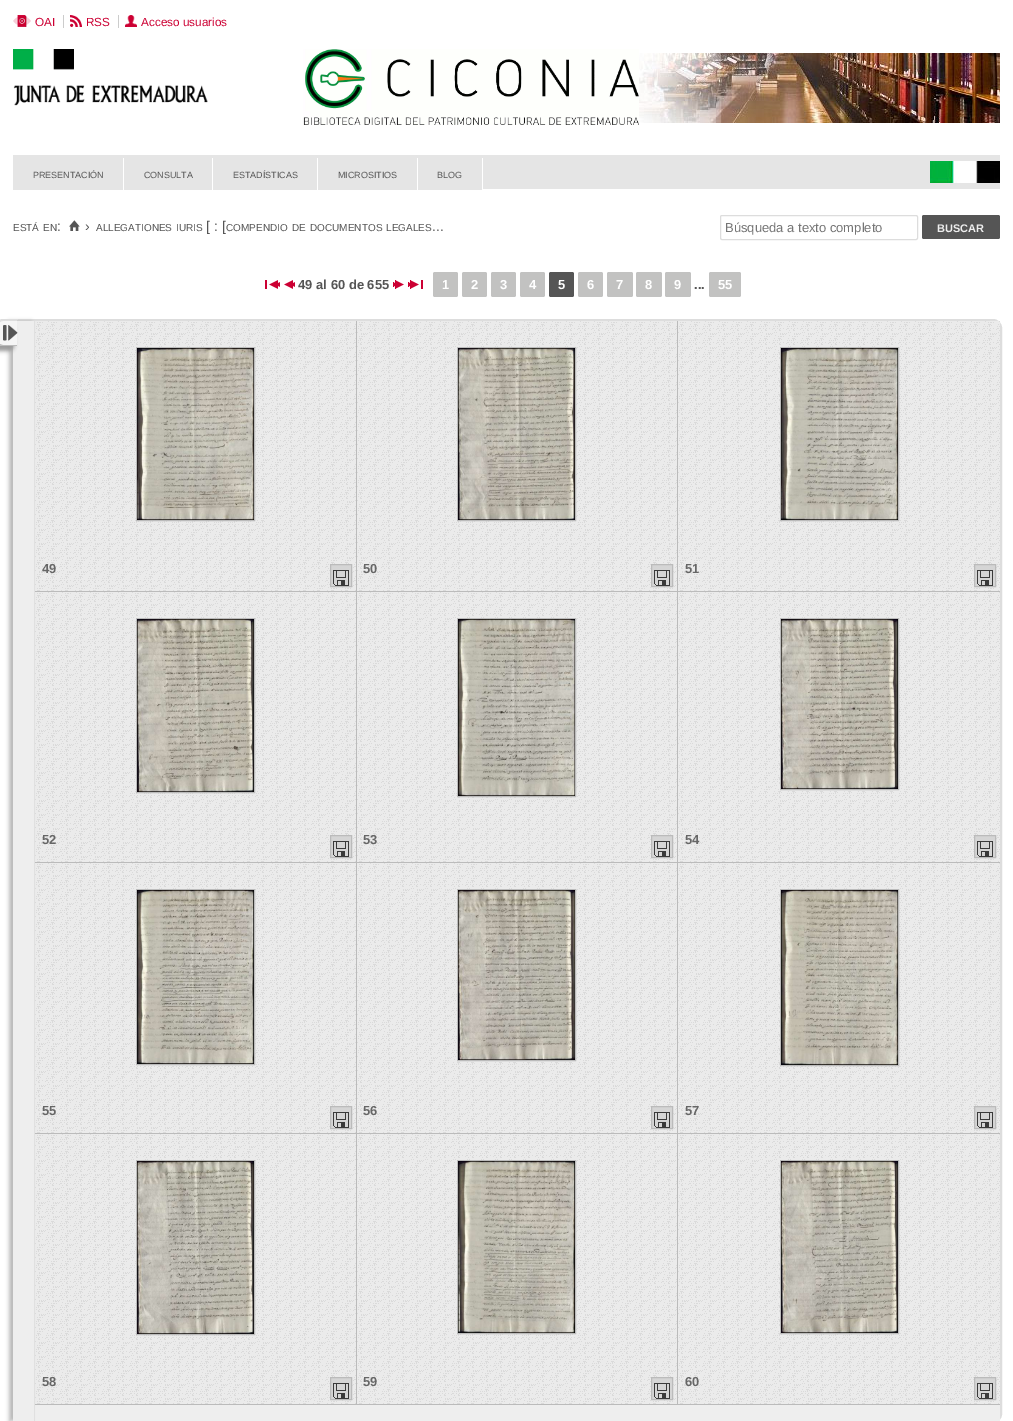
%!PS-Adobe-3.0
%%BoundingBox: 0 0 1013 1421
%%LanguageLevel: 3
%%Pages: 1
%%EndComments
%%BeginProlog
/m { moveto } bind def
/l { lineto } bind def
/c { curveto } bind def
/h { closepath } bind def
/f { fill } bind def
/S { stroke } bind def
/q { gsave } bind def
/Q { grestore } bind def
/w { setlinewidth } bind def
/fn { [ exch dup neg 0 0 3 -1 roll 0 0 ] selectfont } def
/tx { moveto show } def
/bx { rectfill } def
/al { dup .setfillconstantalpha .setstrokeconstantalpha } def
/rr { 5 dict begin { /r /h /w /y /x } { exch def } forall
  x r add y moveto x w add y 2 copy h add r arct x w add y h add x 1 index r arct
  x y h add x y r arct x y 2 copy exch w add exch r arct closepath end } def
/sh { 12 dict begin { /a /b /q /h /w /y /x } { exch def } forall gsave /was 0 def
  9 -2 -9 { dup b mul 4 div /e exch def 1 sub .425 mul 2.718 exch exp 1 add a .99 .min exch div /now exch def
    1 1 now sub 1 was sub div sub al /was now def
    w h .min e 2 mul add 0 gt { x e sub y e sub w e 2 mul add h e 2 mul add
      q e add b .6 mul add w h .min 2 div e add .min 0 .max rr fill } if } for grestore end } def
/im { 5 dict begin { /h /w /y /x /name } { exch def } forall
  gsave x y translate w h scale
  w h 8 [w 0 0 h 0 0] name (r) file false 3 colorimage grestore end } def
%%EndProlog
%%BeginSetup
<< /PageSize [1013 1421] /PageUsesTransparency true >> setpagedevice
%%EndSetup
%%Page: 1 1
0 .pushpdf14devicefilter
0 1421 translate 1 -1 scale
4 setmiterlimit
1 setgray
0 0 1013 1421 bx
(image0.raw) 13 15 18 12 im
/LiberationSans-Regular 11.75 fn
0.8 0 0.2 setrgbcolor
(OAI) 35 26 tx
0.8 setgray
63 15 1 13 bx
(image1.raw) 70 15 12 12 im
0.8 0 0.2 setrgbcolor
(RSS) 86 26 tx
0.8 setgray
118 15 1 13 bx
(image2.raw) 125 15 12 12 im
0.8 0 0.2 setrgbcolor
(Acceso usuarios) 141 26 tx
(image3.raw) 639 53 361 70 im
(image4.raw) 13 49 195 57 im
(image5.raw) 303 49 336 76 im
0.898 setgray
13 155 987 34 bx
(image6.raw) 930 161 70 22 im
13 189 110 1 bx
1 setgray
123 158 1 32 bx
/LiberationSans-Regular 9 fn
0.333 setgray
(PRESENTACIÓN) 33 178 tx
0.898 setgray
124 189 88 1 bx
1 setgray
212 158 1 32 bx
0.333 setgray
(CONSULTA) 144 178 tx
0.898 setgray
213 189 104 1 bx
1 setgray
317 158 1 32 bx
0.333 setgray
(ESTADÍSTICAS) 233 178 tx
0.898 setgray
318 189 99 1 bx
1 setgray
417 158 1 32 bx
0.333 setgray
(MICROSITIOS) 338 178 tx
0.898 setgray
418 189 64 1 bx
1 setgray
482 158 1 32 bx
0.333 setgray
(BLOG) 437 178 tx
/LiberationSans-Regular 10 fn
(ESTÁ) 13 231 tx
(EN) 43 231 tx
/LiberationSans-Regular 14 fn
(:) 57 231 tx
(image7.raw) 69 220 11 11 im
(›) 85 231 tx
/LiberationSans-Regular 10 fn
(ALLEGATIONES) 96 231 tx
(IURIS) 176 231 tx
/LiberationSans-Regular 14 fn
([ : [) 206 231 tx
/LiberationSans-Regular 10 fn
(COMPENDIO) 226 231 tx
(DE) 292 231 tx
(DOCUMENTOS) 310 231 tx
(LEGALES) 386 231 tx
/LiberationSans-Regular 14 fn
(...) 432 231 tx
(image8.raw) 265 280 15 9 im
(image9.raw) 284 280 11 9 im
/LiberationSans-Bold 13 fn
(49 al 60 de 655) 298 289 tx
(image10.raw) 393 280 11 9 im
(image11.raw) 408 280 15 9 im
0.761 0.761 0.757 setrgbcolor
433 272 25 25 2 rr f
1 setgray
(1) 442 289 tx
0.761 0.761 0.757 setrgbcolor
462 272 25 25 2 rr f
1 setgray
(2) 471 289 tx
0.761 0.761 0.757 setrgbcolor
491 272 25 25 2 rr f
1 setgray
(3) 500 289 tx
0.761 0.761 0.757 setrgbcolor
520 272 25 25 2 rr f
1 setgray
(4) 529 289 tx
0.333 setgray
549 272 25 25 2 rr f
1 setgray
(5) 558 289 tx
0.761 0.761 0.757 setrgbcolor
578 272 25 25 2 rr f
1 setgray
(6) 587 289 tx
0.761 0.761 0.757 setrgbcolor
607 272 26 25 2 rr f
1 setgray
(7) 616 289 tx
0.761 0.761 0.757 setrgbcolor
636 272 26 25 2 rr f
1 setgray
(8) 645 289 tx
0.761 0.761 0.757 setrgbcolor
665 272 26 25 2 rr f
1 setgray
(9) 674 289 tx
0.333 setgray
(...) 694 289 tx
0.761 0.761 0.757 setrgbcolor
709 272 32 25 2 rr f
1 setgray
(55) 718 289 tx
0.867 setgray
2 w
12 320 989 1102 8 rr S
0.933 setgray
13 321 21 1100 bx
35 1405 965 16 bx
(image13.raw) 35 321 321 270 im
0.733 setgray
356 321 1 1084 bx
35 591 322 1 bx
(image13.raw) 35 592 321 270 im
677 321 1 1084 bx
35 862 965 1 bx
(image13.raw) 35 863 321 270 im
35 1133 965 1 bx
(image13.raw) 35 1134 321 270 im
35 1404 965 1 bx
q
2 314 m 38 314 l 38 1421 l 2 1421 l h 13 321 m 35 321 l 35 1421 l 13 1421 l h eoclip newpath
9 321 22 1100 0 2 1 sh
Q
0.878 setgray
34 321 1 1100 bx
0.6 setgray
-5 324 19 27 5 2 1 sh
0.961 setgray
3 319 m 17 319 l 17 346 l 3 346 l 0 346 -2 344 -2 341 c -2 324 l -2 321 0 319 3 319 c h f
0.867 setgray
3 319 m 1 319 0 319.5 -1 321 c -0.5 322.5 l 0.5 321.5 1.5 321 3 321 c 17 321 l 17 319 l h f
0.733 setgray
17 346 m 17 345 l 3 345 l 2 345 1 344.5 0 344 c -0.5 344.5 l 0 345.5 1.5 346 3 346 c h f
(image12.raw) 3 325 15 16 im
1 w
136.5 347.5 118 173 rectstroke
(image14.raw) 137 348 117 172 im
0.4 setgray
(49) 42 573 tx
0.835 setgray
330.5 564.5 m 351.5 564.5 l 351.5 586.5 l 330.5 586.5 l h q f Q
0.733 setgray
S
(image15.raw) 333 570 16 16 im
(image16.raw) 357 321 320 270 im
357 591 643 1 bx
457.5 347.5 118 173 rectstroke
(image17.raw) 458 348 117 172 im
0.4 setgray
(50) 363 573 tx
0.835 setgray
651.5 564.5 m 672.5 564.5 l 672.5 586.5 l 651.5 586.5 l h q f Q
0.733 setgray
S
(image15.raw) 654 570 16 16 im
(image18.raw) 678 321 322 270 im
780.5 347.5 118 173 rectstroke
(image19.raw) 781 348 117 172 im
0.4 setgray
(51) 685 573 tx
0.835 setgray
974.5 564.5 m 995.5 564.5 l 995.5 586.5 l 974.5 586.5 l h q f Q
0.733 setgray
S
(image15.raw) 977 570 16 16 im
136.5 618.5 118 174 rectstroke
(image20.raw) 137 619 117 173 im
0.4 setgray
(52) 42 844 tx
0.835 setgray
330.5 835.5 m 351.5 835.5 l 351.5 857.5 l 330.5 857.5 l h q f Q
0.733 setgray
S
(image15.raw) 333 841 16 16 im
(image16.raw) 357 592 320 270 im
457.5 618.5 118 178 rectstroke
(image21.raw) 458 619 117 177 im
0.4 setgray
(53) 363 844 tx
0.835 setgray
651.5 835.5 m 672.5 835.5 l 672.5 857.5 l 651.5 857.5 l h q f Q
0.733 setgray
S
(image15.raw) 654 841 16 16 im
(image18.raw) 678 592 322 270 im
780.5 618.5 118 171 rectstroke
(image22.raw) 781 619 117 170 im
0.4 setgray
(54) 685 844 tx
0.835 setgray
974.5 835.5 m 995.5 835.5 l 995.5 857.5 l 974.5 857.5 l h q f Q
0.733 setgray
S
(image15.raw) 977 841 16 16 im
136.5 889.5 118 175 rectstroke
(image23.raw) 137 890 117 174 im
0.4 setgray
(55) 42 1115 tx
0.835 setgray
330.5 1106.5 m 351.5 1106.5 l 351.5 1128.5 l 330.5 1128.5 l h q f Q
0.733 setgray
S
(image15.raw) 333 1112 16 16 im
(image16.raw) 357 863 320 270 im
457.5 889.5 118 171 rectstroke
(image24.raw) 458 890 117 170 im
0.4 setgray
(56) 363 1115 tx
0.835 setgray
651.5 1106.5 m 672.5 1106.5 l 672.5 1128.5 l 651.5 1128.5 l h q f Q
0.733 setgray
S
(image15.raw) 654 1112 16 16 im
(image18.raw) 678 863 322 270 im
780.5 889.5 118 176 rectstroke
(image25.raw) 781 890 117 175 im
0.4 setgray
(57) 685 1115 tx
0.835 setgray
974.5 1106.5 m 995.5 1106.5 l 995.5 1128.5 l 974.5 1128.5 l h q f Q
0.733 setgray
S
(image15.raw) 977 1112 16 16 im
136.5 1160.5 118 174 rectstroke
(image26.raw) 137 1161 117 173 im
0.4 setgray
(58) 42 1386 tx
0.835 setgray
330.5 1377.5 m 351.5 1377.5 l 351.5 1399.5 l 330.5 1399.5 l h q f Q
0.733 setgray
S
(image15.raw) 333 1383 16 16 im
(image16.raw) 357 1134 320 270 im
457.5 1160.5 118 173 rectstroke
(image27.raw) 458 1161 117 172 im
0.4 setgray
(59) 363 1386 tx
0.835 setgray
651.5 1377.5 m 672.5 1377.5 l 672.5 1399.5 l 651.5 1399.5 l h q f Q
0.733 setgray
S
(image15.raw) 654 1383 16 16 im
(image18.raw) 678 1134 322 270 im
780.5 1160.5 118 173 rectstroke
(image28.raw) 781 1161 117 172 im
0.4 setgray
(60) 685 1386 tx
0.835 setgray
974.5 1377.5 m 995.5 1377.5 l 995.5 1399.5 l 974.5 1399.5 l h q f Q
0.733 setgray
S
(image15.raw) 977 1383 16 16 im
0.867 setgray
720.5 215.5 197 24 1.5 rr S
/LiberationSans-Regular 13 fn
0.459 setgray
(Búsqueda a texto completo) 725 232 tx
0.333 setgray
922 215 78 24 2 rr f
/LiberationSans-Bold 11 fn
0.933 setgray
(BUSCAR) 937 232 tx
.poppdf14devicefilter showpage
%%EOF
